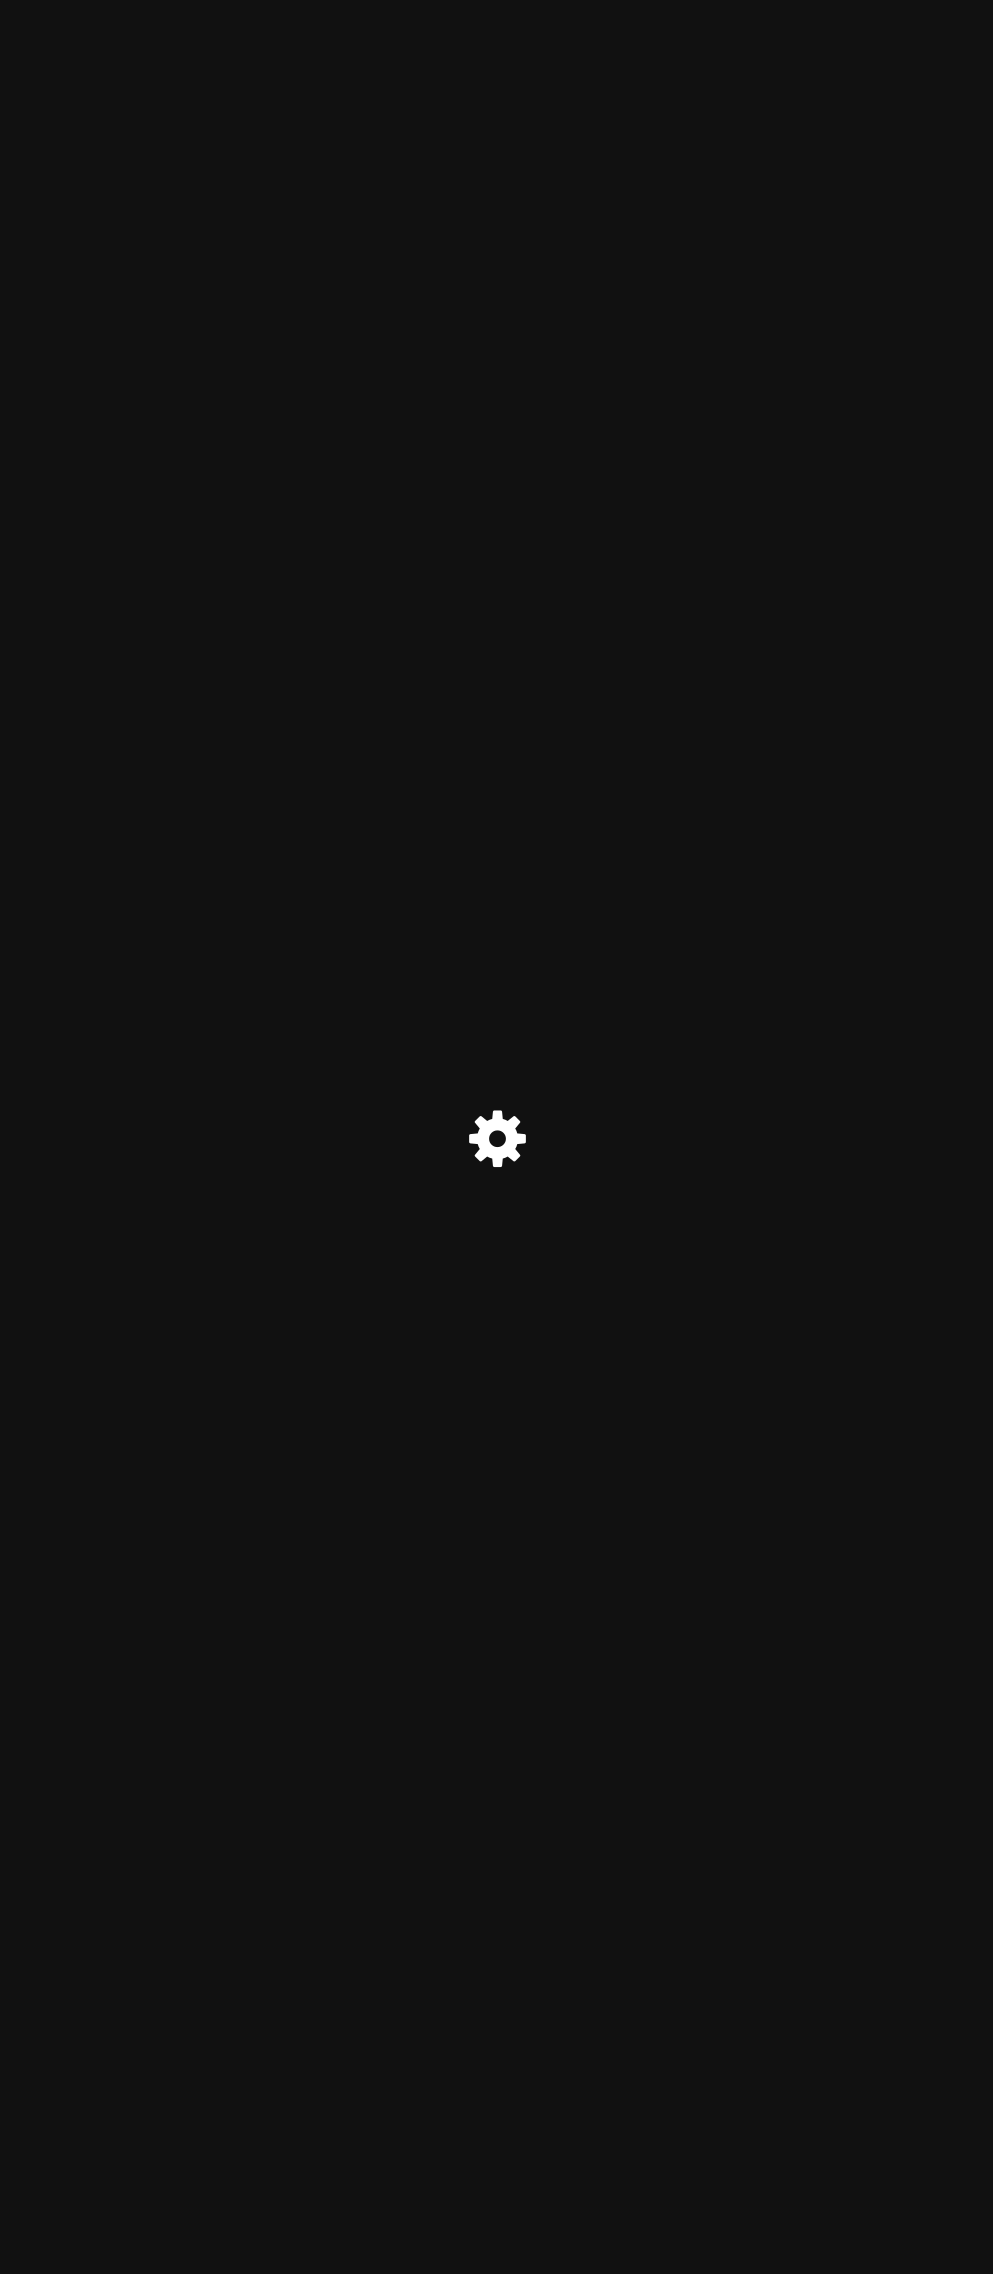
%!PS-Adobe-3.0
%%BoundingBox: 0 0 993 2274
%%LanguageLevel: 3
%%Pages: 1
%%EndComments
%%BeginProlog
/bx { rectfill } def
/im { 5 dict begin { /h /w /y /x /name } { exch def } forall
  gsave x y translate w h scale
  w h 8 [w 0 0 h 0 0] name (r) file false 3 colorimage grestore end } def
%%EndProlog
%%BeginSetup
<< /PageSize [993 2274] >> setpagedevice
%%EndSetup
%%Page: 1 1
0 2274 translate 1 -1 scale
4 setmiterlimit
0.067 setgray
0 0 993 2274 bx
(image0.raw) 469 1110 57 58 im
showpage
%%EOF
